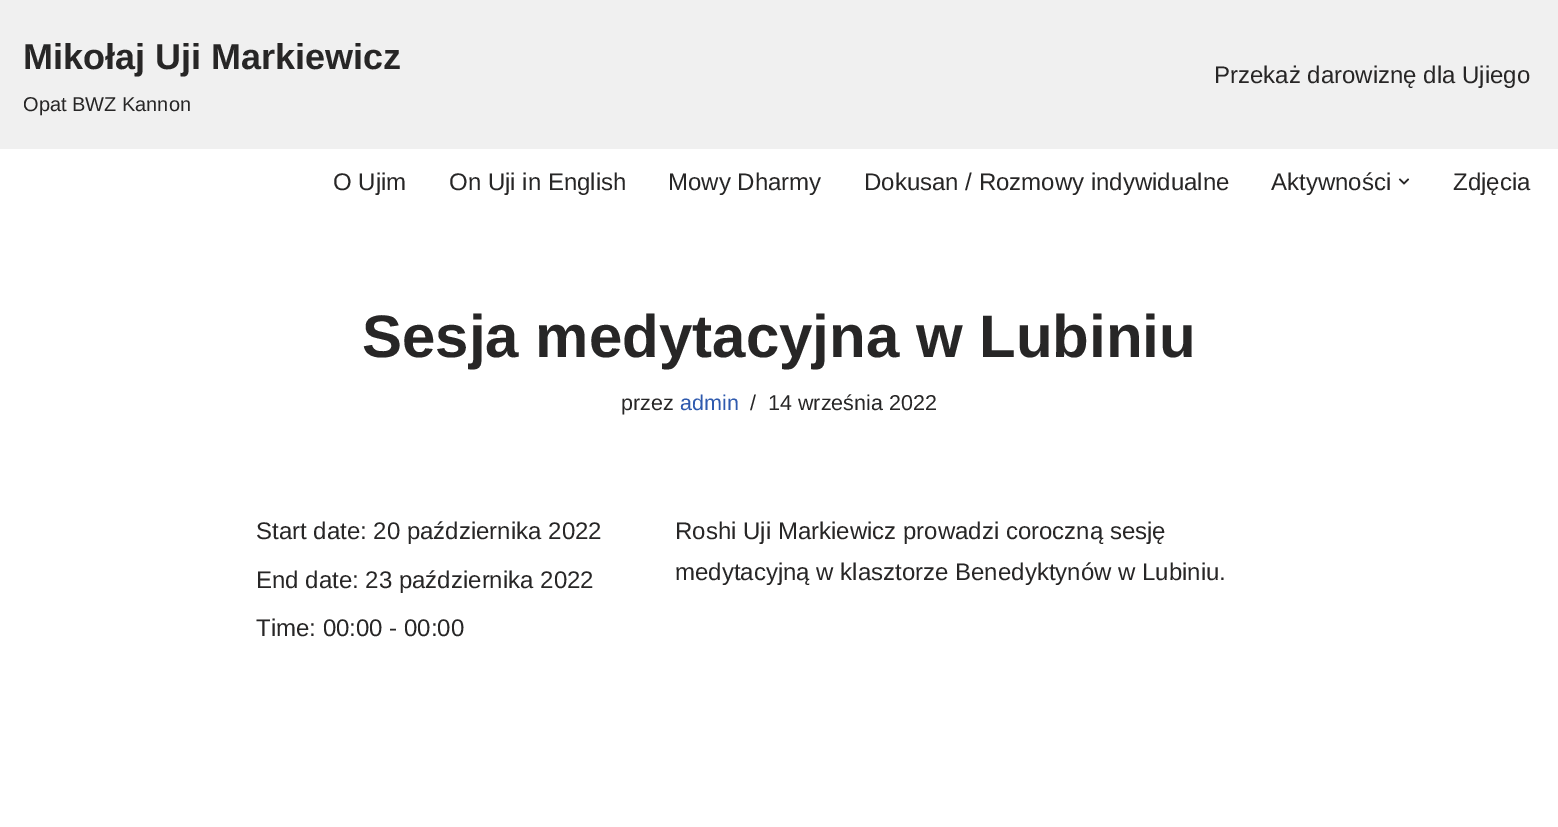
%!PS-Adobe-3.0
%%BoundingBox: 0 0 1558 827
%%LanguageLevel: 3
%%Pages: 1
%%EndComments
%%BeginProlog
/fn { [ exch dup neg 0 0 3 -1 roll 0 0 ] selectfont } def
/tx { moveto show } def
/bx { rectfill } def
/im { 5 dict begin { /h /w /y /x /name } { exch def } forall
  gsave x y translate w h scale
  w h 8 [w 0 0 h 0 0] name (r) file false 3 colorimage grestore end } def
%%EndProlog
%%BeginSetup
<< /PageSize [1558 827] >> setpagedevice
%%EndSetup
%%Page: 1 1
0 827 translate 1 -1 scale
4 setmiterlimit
1 setgray
0 0 1558 827 bx
0.941 setgray
0 0 1558 149 bx
/LiberationSans-Bold 36 fn
0.153 0.149 0.149 setrgbcolor
(Mikołaj Uji Markiewicz) 23 69 tx
/LiberationSans-Regular 20 fn
(Opat BWZ Kannon) 23 111 tx
/LiberationSans-Regular 24 fn
(Przekaż darowiznę dla Ujiego) 1214 83 tx
(O Ujim) 333 190 tx
(On Uji in English) 449 190 tx
(Mowy Dharmy) 668 190 tx
(Dokusan / Rozmowy indywidualne) 864 190 tx
(Aktywności) 1271 190 tx
(image0.raw) 1398 178 12 7 im
(Zdjęcia) 1453 190 tx
/LiberationSans-Bold 60 fn
(Sesja medytacyjna w Lubiniu) 362 357 tx
/LiberationSans-Regular 21.5 fn
(przez) 621 410 tx
0.184 0.353 0.682 setrgbcolor
(admin) 680 410 tx
0.153 0.149 0.149 setrgbcolor
(/) 750 410 tx
(14 września 2022) 768 410 tx
/LiberationSans-Regular 24 fn
(Start date: 20 października 2022) 256 539 tx
(End date: 23 października 2022) 256 588 tx
(Time: 00:00 - 00:00) 256 636 tx
(Roshi Uji Markiewicz prowadzi coroczną sesję) 675 539 tx
(medytacyjną w klasztorze Benedyktynów w Lubiniu.) 675 580 tx
showpage
%%EOF
